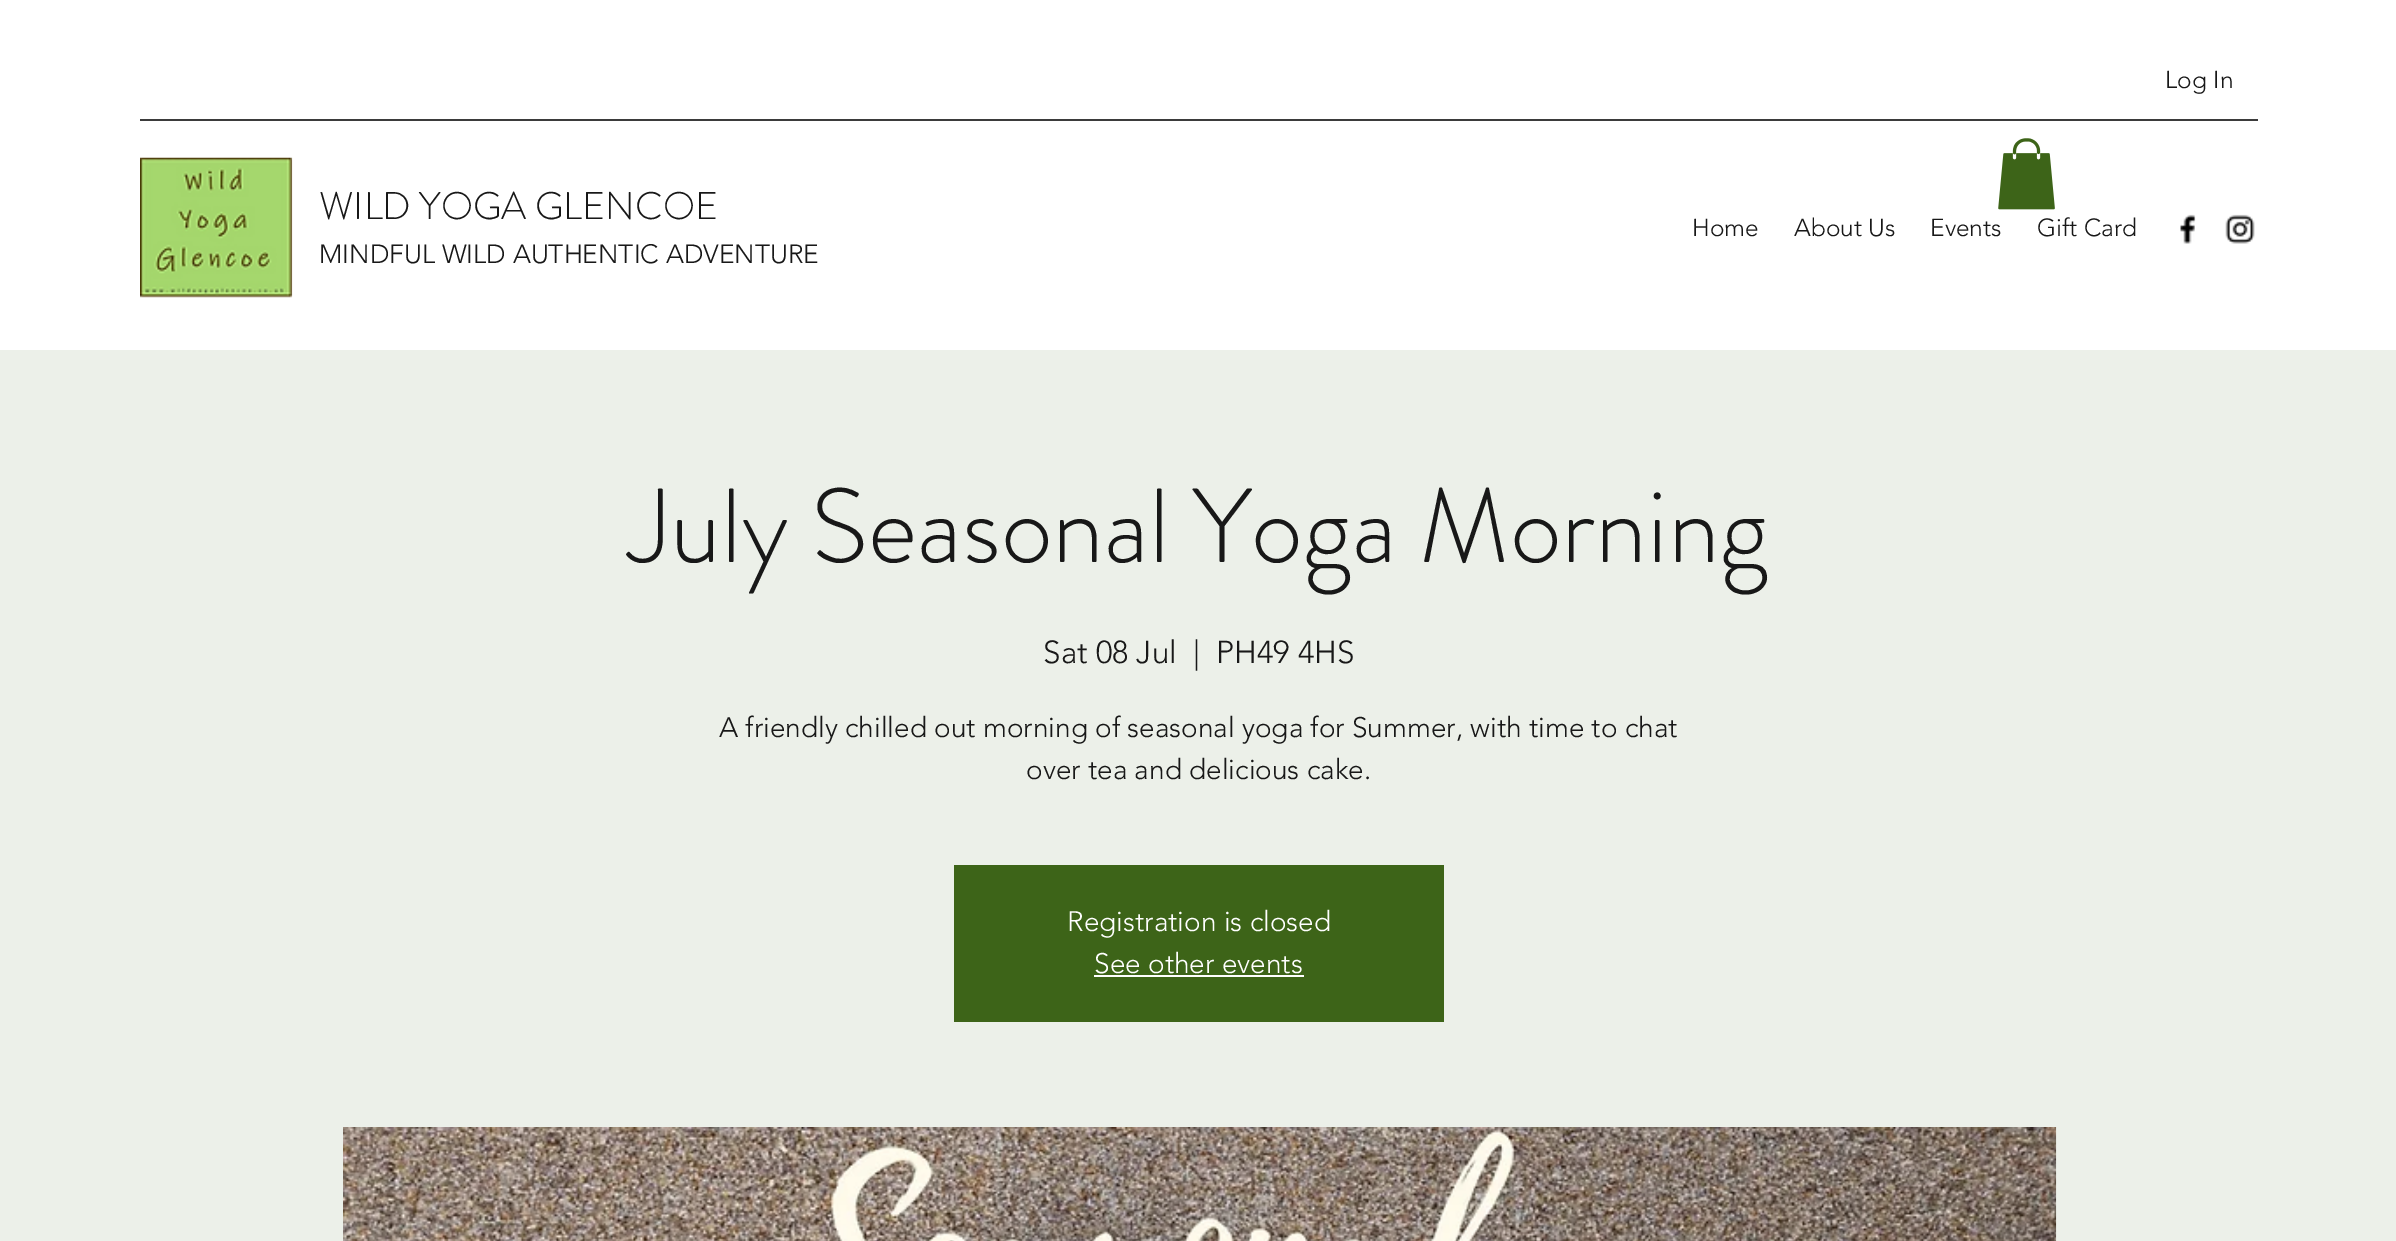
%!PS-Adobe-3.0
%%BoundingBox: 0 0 2396 1241
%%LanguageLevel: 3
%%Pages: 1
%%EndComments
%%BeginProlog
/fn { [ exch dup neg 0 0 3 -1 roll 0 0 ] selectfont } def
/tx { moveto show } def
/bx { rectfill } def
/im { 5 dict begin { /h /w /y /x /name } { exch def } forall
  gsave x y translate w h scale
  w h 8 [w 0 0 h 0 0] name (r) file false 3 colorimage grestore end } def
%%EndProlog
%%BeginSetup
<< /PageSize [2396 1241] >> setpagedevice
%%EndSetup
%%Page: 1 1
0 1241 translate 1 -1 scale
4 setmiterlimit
1 setgray
0 0 2396 1241 bx
/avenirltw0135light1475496-Light 24.5 fn
0.094 setgray
(Log In) 2165 88 tx
0.231 setgray
140 119 2118 2 bx
(image0.raw) 1998 138 57 72 im
(image1.raw) 140 157 153 141 im
/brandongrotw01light-Light 38.5 fn
0.094 setgray
(WILD YOGA GLENCOE) 319 219 tx
/avenirltw0135light1475496-Light 26.25 fn
(MINDFUL WILD AUTHENTIC ADVENTURE) 319 263 tx
/avenirltw0135light1475496-Light 24.5 fn
(Home) 1692 236 tx
(About Us) 1794 236 tx
(Events) 1930 236 tx
(Gift Card) 2037 236 tx
(image2.raw) 2180 214 16 30 im
(image3.raw) 2225 214 30 30 im
0.925 0.941 0.914 setrgbcolor
0 350 2396 891 bx
/brandongrotw01light-Light 105 fn
0.094 setgray
(July Seasonal Yoga Morning) 629 562 tx
/avenirltw0135light1475496-Light 31.5 fn
(Sat 08 Jul) 1043 663 tx
(|) 1193 663 tx
(PH49 4HS) 1216 663 tx
/avenirltw0135light1475496-Light 28 fn
(A friendly chilled out morning of seasonal yoga for Summer, with time to chat) 719 737 tx
(over tea and delicious cake.) 1026 779 tx
0.239 0.392 0.094 setrgbcolor
954 865 490 157 bx
1 setgray
(Registration is closed) 1067 931 tx
(See other events) 1094 973 tx
1094 975 210 2 bx
(image4.raw) 343 1127 1714 114 im
showpage
%%EOF
